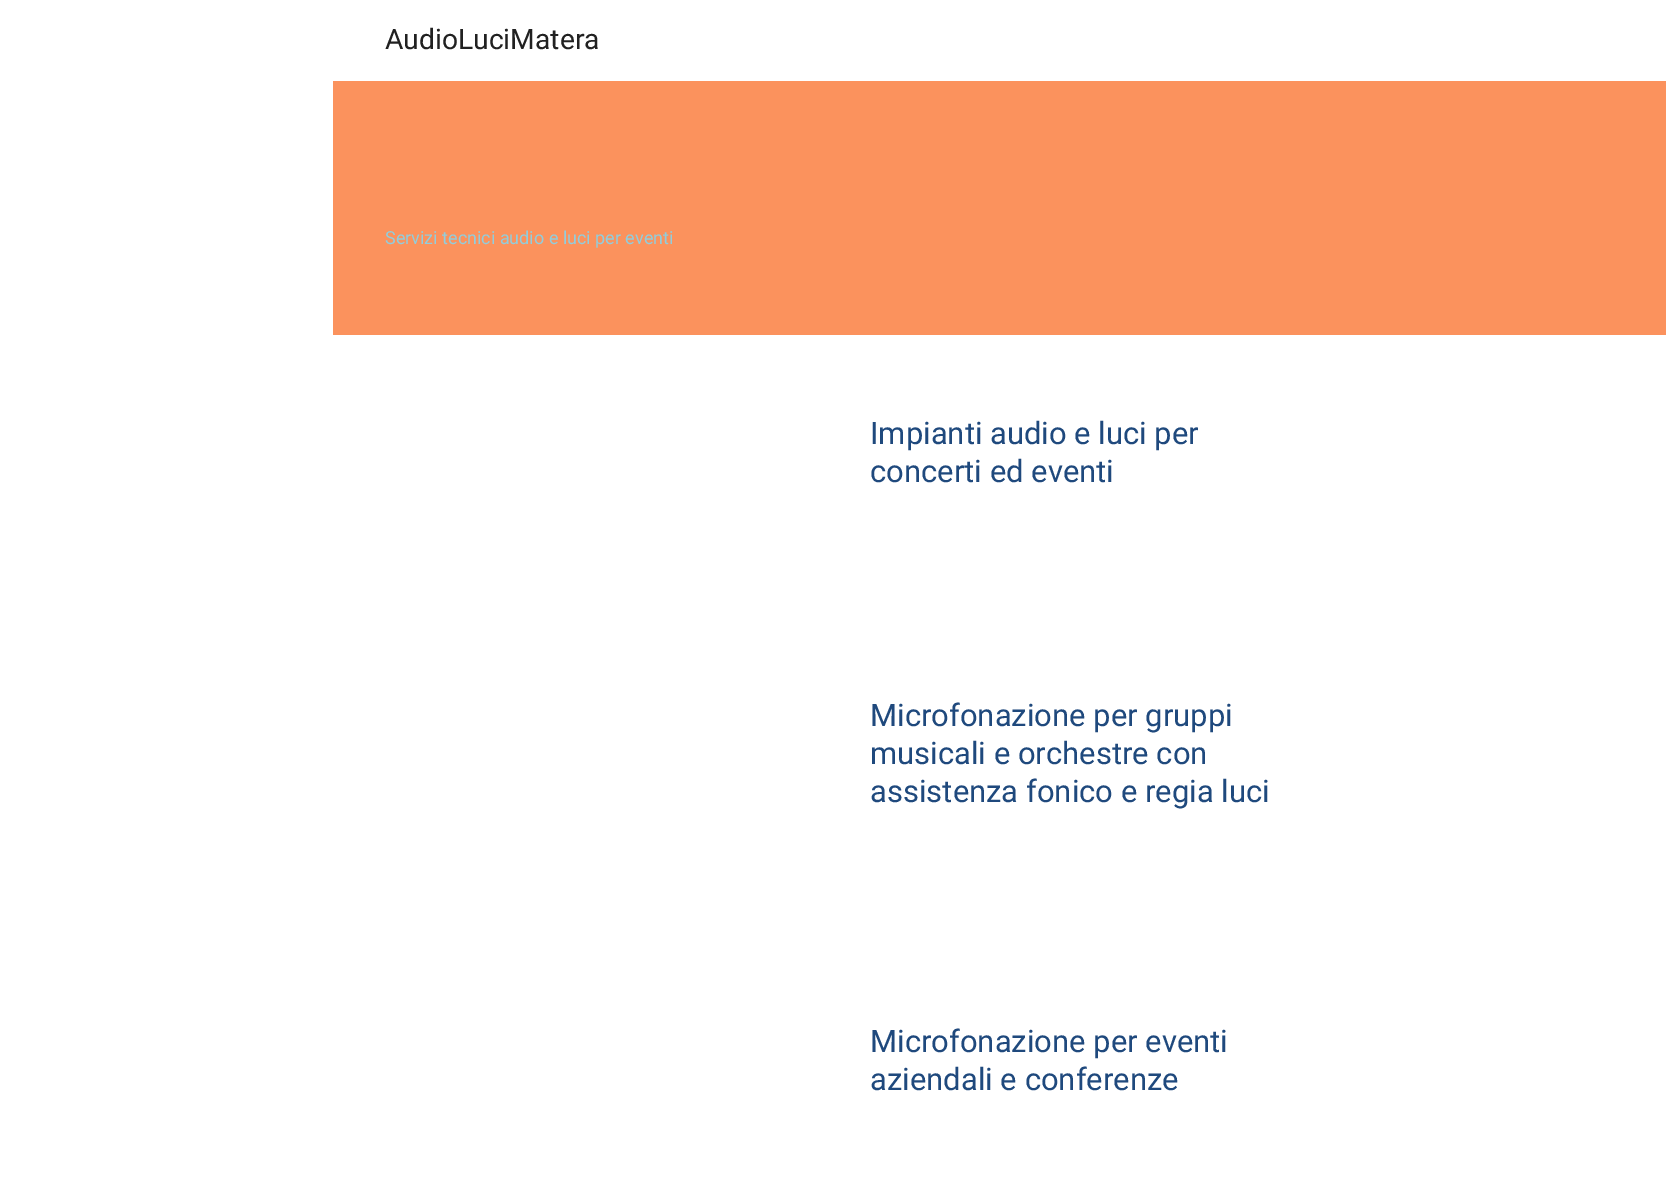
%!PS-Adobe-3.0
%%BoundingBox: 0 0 1666 1194
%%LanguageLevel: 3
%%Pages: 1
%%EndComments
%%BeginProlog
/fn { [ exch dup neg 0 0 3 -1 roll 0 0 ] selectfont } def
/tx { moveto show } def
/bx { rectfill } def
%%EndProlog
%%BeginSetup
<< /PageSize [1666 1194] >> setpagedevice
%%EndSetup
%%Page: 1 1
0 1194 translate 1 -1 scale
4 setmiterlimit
1 setgray
0 0 1666 1194 bx
/Roboto-Regular 28.25 fn
0.129 setgray
(AudioLuciMatera) 385 49 tx
0.984 0.573 0.365 setrgbcolor
333 81 1333 254 bx
/Roboto-Regular 18 fn
0.573 0.804 0.863 setrgbcolor
(Servizi tecnici audio e luci per eventi) 385 244 tx
/Roboto-Regular 31 fn
0.122 0.286 0.49 setrgbcolor
(Impianti audio e luci per) 870 444 tx
(concerti ed eventi) 870 482 tx
(Microfonazione per gruppi) 870 726 tx
(musicali e orchestre con) 870 764 tx
(assistenza fonico e regia luci) 870 802 tx
(Microfonazione per eventi) 870 1052 tx
(aziendali e conferenze) 870 1090 tx
showpage
%%EOF
